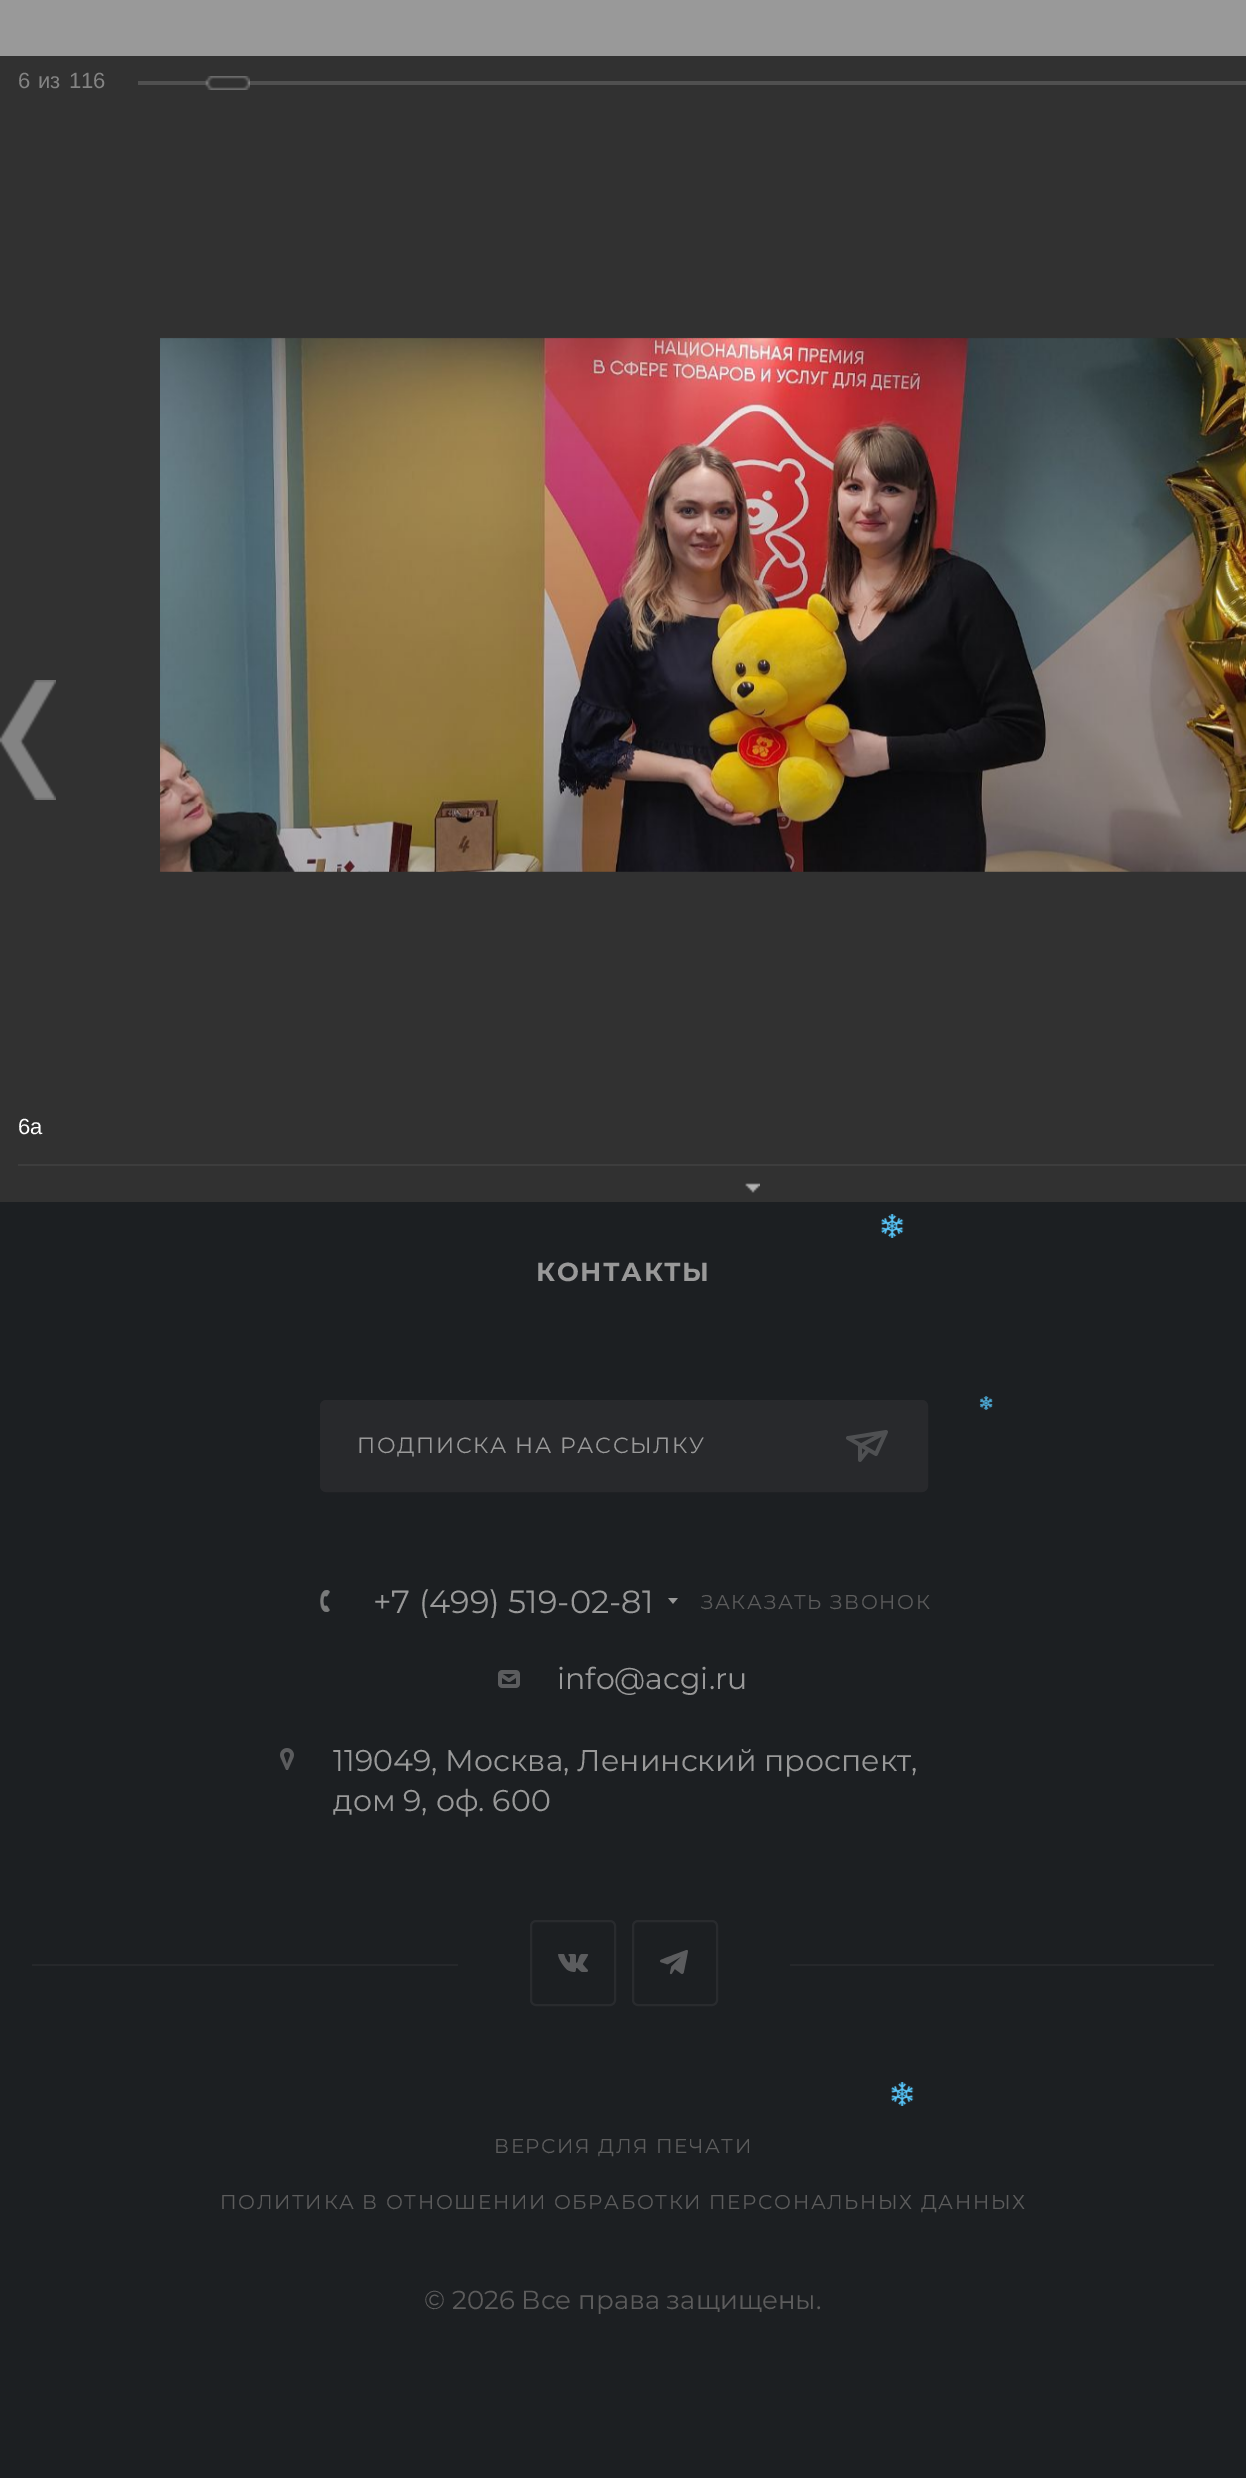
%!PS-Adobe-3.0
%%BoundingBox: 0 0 1246 2478
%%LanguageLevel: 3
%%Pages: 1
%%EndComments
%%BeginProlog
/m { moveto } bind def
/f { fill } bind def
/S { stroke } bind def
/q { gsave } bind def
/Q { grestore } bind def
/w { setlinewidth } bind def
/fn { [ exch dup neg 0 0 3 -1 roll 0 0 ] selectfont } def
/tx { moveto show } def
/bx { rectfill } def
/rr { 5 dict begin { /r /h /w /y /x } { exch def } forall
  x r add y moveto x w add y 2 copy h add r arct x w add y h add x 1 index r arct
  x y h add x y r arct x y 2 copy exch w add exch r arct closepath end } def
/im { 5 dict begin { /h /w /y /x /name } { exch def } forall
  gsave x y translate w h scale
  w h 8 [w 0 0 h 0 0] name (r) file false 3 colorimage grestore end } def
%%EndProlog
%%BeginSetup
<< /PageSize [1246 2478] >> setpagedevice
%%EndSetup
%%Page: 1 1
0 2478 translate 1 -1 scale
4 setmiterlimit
0.6 setgray
0 0 1246 2478 bx
0.192 setgray
0 56 1246 1146 bx
/LiberationSans-Regular 22 fn
0.514 setgray
(6) 18 88 tx
(из) 38 88 tx
(116) 69 88 tx
0.314 setgray
138 81 1108 4 bx
(image0.raw) 205 76 45 14 im
(image1.raw) 160 337 1086 535 im
0.239 setgray
18 1164 1228 2 bx
1 setgray
(6a) 18 1134 tx
(image2.raw) 745 1183 15 10 im
(image3.raw) 0 680 56 120 im
0.11 0.122 0.133 setrgbcolor
0 1202 1246 1276 bx
(image4.raw) 881 1214 23 24 im
/Montserrat-Bold 26 fn
0.6 setgray
536 1281 m 1.6 0 (КОНТАКТЫ) ashow
0.157 0.161 0.173 setrgbcolor
321 1401 606 90 5 rr q f Q
2 w
S
/Montserrat-Regular 22 fn
0.6 setgray
357 1453 m 1.6 0 (ПОДПИСКА НА РАССЫЛКУ) ashow
(image5.raw) 846 1430 42 32 im
(image6.raw) 320 1590 10 22 im
(image7.raw) 320 1590 10 22 im
q
314 1586 364 32 rectclip
/Montserrat-Regular 32 fn
(+7 \(499\) 519-02-81) 373 1613 tx
Q
(image8.raw) 668 1598 10 6 im
/Montserrat-Regular 20 fn
0.361 setgray
701 1609 m 1.6 0 (ЗАКАЗАТЬ ЗВОНОК) ashow
(image9.raw) 498 1670 22 18 im
/Montserrat-Regular 30 fn
0.6 setgray
(info@acgi.ru) 557 1689 tx
(image10.raw) 280 1748 14 22 im
(119049, Москва, Ленинский проспект,) 333 1771 tx
(дом 9, оф. 600) 333 1811 tx
0.149 0.157 0.169 setrgbcolor
32 1964 1182 2 bx
0.11 0.122 0.133 setrgbcolor
458 1964 332 2 bx
(image11.raw) 558 1954 31 18 im
0.161 0.169 0.18 setrgbcolor
531 1921 84 84 5 rr S
(image12.raw) 660 1950 28 25 im
633 1921 84 84 5 rr S
/Montserrat-Regular 20 fn
0.361 setgray
494 2153 m 1.6 0 (ВЕРСИЯ ДЛЯ ПЕЧАТИ) ashow
220 2209 m 1.6 0 (ПОЛИТИКА В ОТНОШЕНИИ ОБРАБОТКИ ПЕРСОНАЛЬНЫХ ДАННЫХ) ashow
/Montserrat-Regular 26 fn
(© 2026 Все права защищены.) 424 2309 tx
(image13.raw) 979 1396 14 14 im
(image4.raw) 891 2082 23 24 im
showpage
%%EOF
